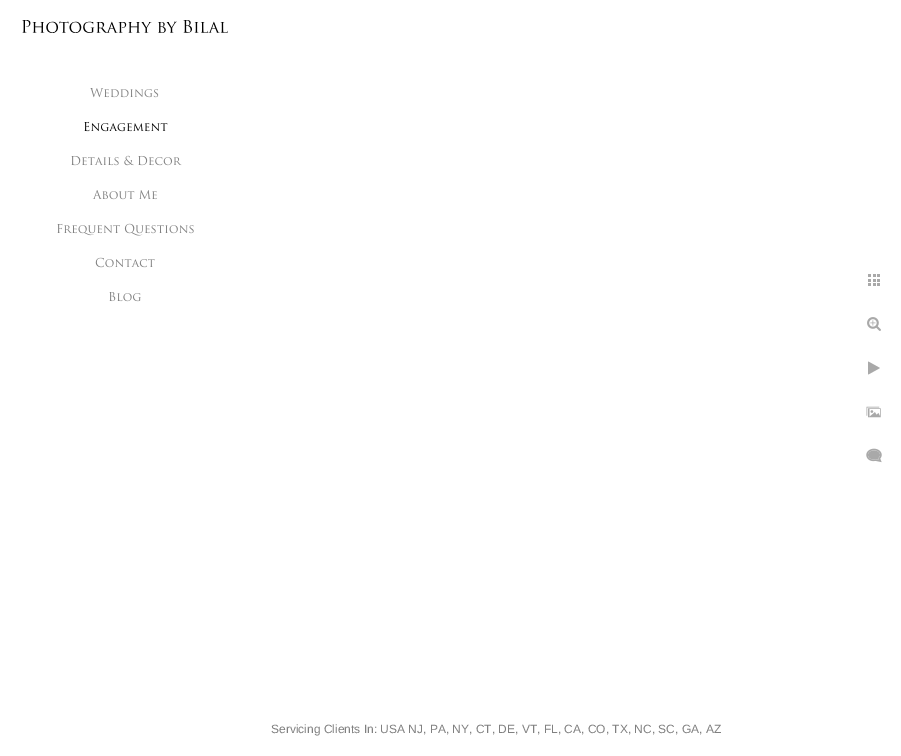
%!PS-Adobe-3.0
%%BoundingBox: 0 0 901 756
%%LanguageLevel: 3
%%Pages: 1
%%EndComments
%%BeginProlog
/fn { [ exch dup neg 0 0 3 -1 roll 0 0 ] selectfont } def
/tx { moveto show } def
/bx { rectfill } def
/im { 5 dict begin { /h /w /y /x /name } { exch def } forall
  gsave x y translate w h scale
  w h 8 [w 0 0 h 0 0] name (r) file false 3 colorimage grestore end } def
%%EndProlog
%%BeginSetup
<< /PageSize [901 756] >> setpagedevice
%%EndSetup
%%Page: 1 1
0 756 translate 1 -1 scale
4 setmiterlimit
1 setgray
0 0 901 756 bx
(image0.raw) 22 20 206 13 im
(image1.raw) 90 88 69 10 im
(image2.raw) 84 121 84 11 im
(image3.raw) 71 155 111 11 im
(image4.raw) 92 190 65 10 im
(image5.raw) 57 223 137 13 im
(image6.raw) 95 257 60 11 im
(image7.raw) 109 292 32 10 im
(image8.raw) 868 274 12 12 im
(image9.raw) 867 317 14 14 im
(image10.raw) 868 361 12 14 im
(image11.raw) 866 406 15 12 im
(image12.raw) 866 448 16 15 im
/LiberationSans-Regular 12 fn
0.502 setgray
(Servicing Clients In: USA NJ, PA, NY, CT, DE, VT, FL, CA, CO, TX, NC, SC, GA, AZ) 271 733 tx
showpage
%%EOF
